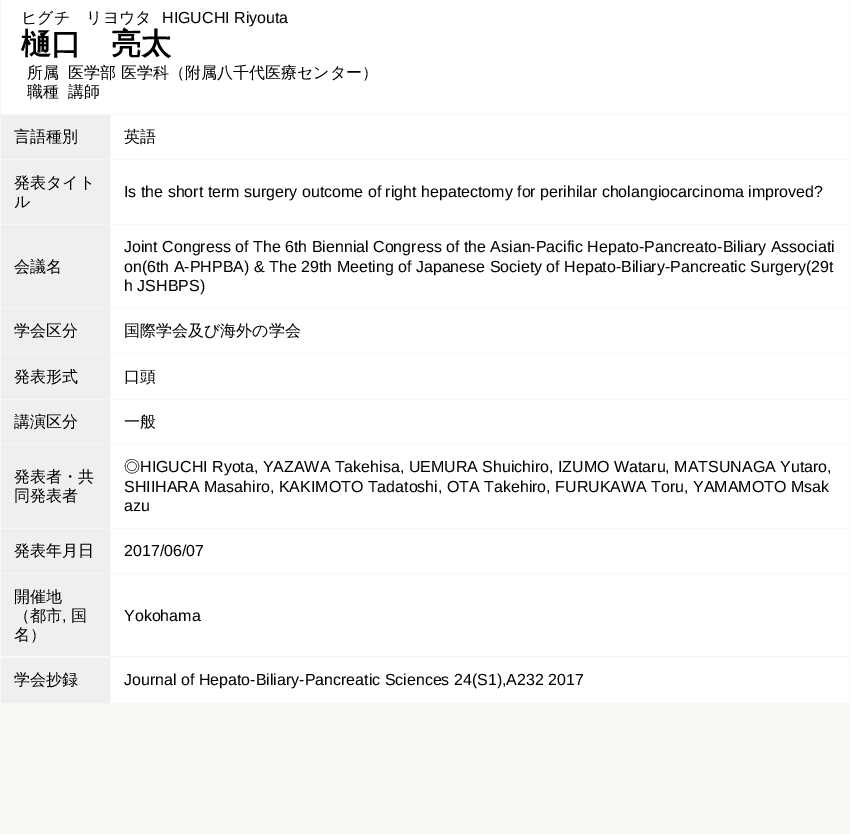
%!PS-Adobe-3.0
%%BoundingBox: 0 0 850 834
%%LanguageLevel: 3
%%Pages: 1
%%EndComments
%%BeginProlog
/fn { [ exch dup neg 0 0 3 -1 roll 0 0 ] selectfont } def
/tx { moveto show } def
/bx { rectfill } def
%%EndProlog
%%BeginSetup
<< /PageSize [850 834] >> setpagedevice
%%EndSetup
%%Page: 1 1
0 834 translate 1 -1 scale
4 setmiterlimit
0.969 0.973 0.953 setrgbcolor
0 0 850 834 bx
1 setgray
1 0 848 114 bx
/WenQuanYiZenHei-Medium 16 fn
0 setgray
(ヒグチ　リヨウタ) 21 23 tx
/LiberationSans-Regular 16 fn
(HIGUCHI Riyouta) 162 23 tx
/WenQuanYiZenHei-Bold 30 fn
(樋口　亮太) 21 54 tx
/WenQuanYiZenHei-Medium 16 fn
(所属) 27 78 tx
(医学部 医学科（附属八千代医療センター）) 68 78 tx
(職種) 27 97 tx
(講師) 68 97 tx
0.937 setgray
1 115 109 44 bx
0 setgray
(言語種別) 14 142 tx
1 setgray
111 115 738 44 bx
0 setgray
(英語) 124 142 tx
0.937 setgray
1 160 109 64 bx
0 setgray
(発表タイト) 14 188 tx
(ル) 14 207 tx
1 setgray
111 160 738 64 bx
/LiberationSans-Regular 16 fn
0 setgray
(Is the short term surgery outcome of right hepatectomy for perihilar cholangiocarcinoma improved?) 124 197 tx
0.937 setgray
1 225 109 83 bx
/WenQuanYiZenHei-Medium 16 fn
0 setgray
(会議名) 14 272 tx
1 setgray
111 225 738 83 bx
/LiberationSans-Regular 16 fn
0 setgray
(Joint Congress of The 6th Biennial Congress of the Asian-Pacific Hepato-Pancreato-Biliary Associati) 124 252 tx
(on\(6th A-PHPBA\) & The 29th Meeting of Japanese Society of Hepato-Biliary-Pancreatic Surgery\(29t) 124 272 tx
(h JSHBPS\)) 124 291 tx
0.937 setgray
1 309 109 44 bx
/WenQuanYiZenHei-Medium 16 fn
0 setgray
(学会区分) 14 336 tx
1 setgray
111 309 738 44 bx
0 setgray
(国際学会及び海外の学会) 124 336 tx
0.937 setgray
1 354 109 45 bx
0 setgray
(発表形式) 14 382 tx
1 setgray
111 354 738 45 bx
0 setgray
(口頭) 124 382 tx
0.937 setgray
1 400 109 44 bx
0 setgray
(講演区分) 14 427 tx
1 setgray
111 400 738 44 bx
0 setgray
(一般) 124 427 tx
0.937 setgray
1 445 109 83 bx
0 setgray
(発表者・共) 14 482 tx
(同発表者) 14 501 tx
1 setgray
111 445 738 83 bx
0 setgray
(◎) 124 472 tx
/LiberationSans-Regular 16 fn
(HIGUCHI Ryota, YAZAWA Takehisa, UEMURA Shuichiro, IZUMO Wataru, MATSUNAGA Yutaro,) 140 472 tx
(SHIIHARA Masahiro, KAKIMOTO Tadatoshi, OTA Takehiro, FURUKAWA Toru, YAMAMOTO Msak) 124 492 tx
(azu) 124 511 tx
0.937 setgray
1 529 109 44 bx
/WenQuanYiZenHei-Medium 16 fn
0 setgray
(発表年月日) 14 556 tx
1 setgray
111 529 738 44 bx
/LiberationSans-Regular 16 fn
0 setgray
(2017/06/07) 124 556 tx
0.937 setgray
1 574 109 82 bx
/WenQuanYiZenHei-Medium 16 fn
0 setgray
(開催地) 14 602 tx
(（都市) 14 621 tx
/LiberationSans-Regular 16 fn
(,) 62 621 tx
/WenQuanYiZenHei-Medium 16 fn
(国) 71 621 tx
(名）) 14 640 tx
1 setgray
111 574 738 82 bx
/LiberationSans-Regular 16 fn
0 setgray
(Yokohama) 124 621 tx
0.937 setgray
1 658 109 45 bx
/WenQuanYiZenHei-Medium 16 fn
0 setgray
(学会抄録) 14 685 tx
1 setgray
111 658 738 45 bx
/LiberationSans-Regular 16 fn
0 setgray
(Journal of Hepato-Biliary-Pancreatic Sciences 24\(S1\),A232 2017) 124 685 tx
showpage
%%EOF
